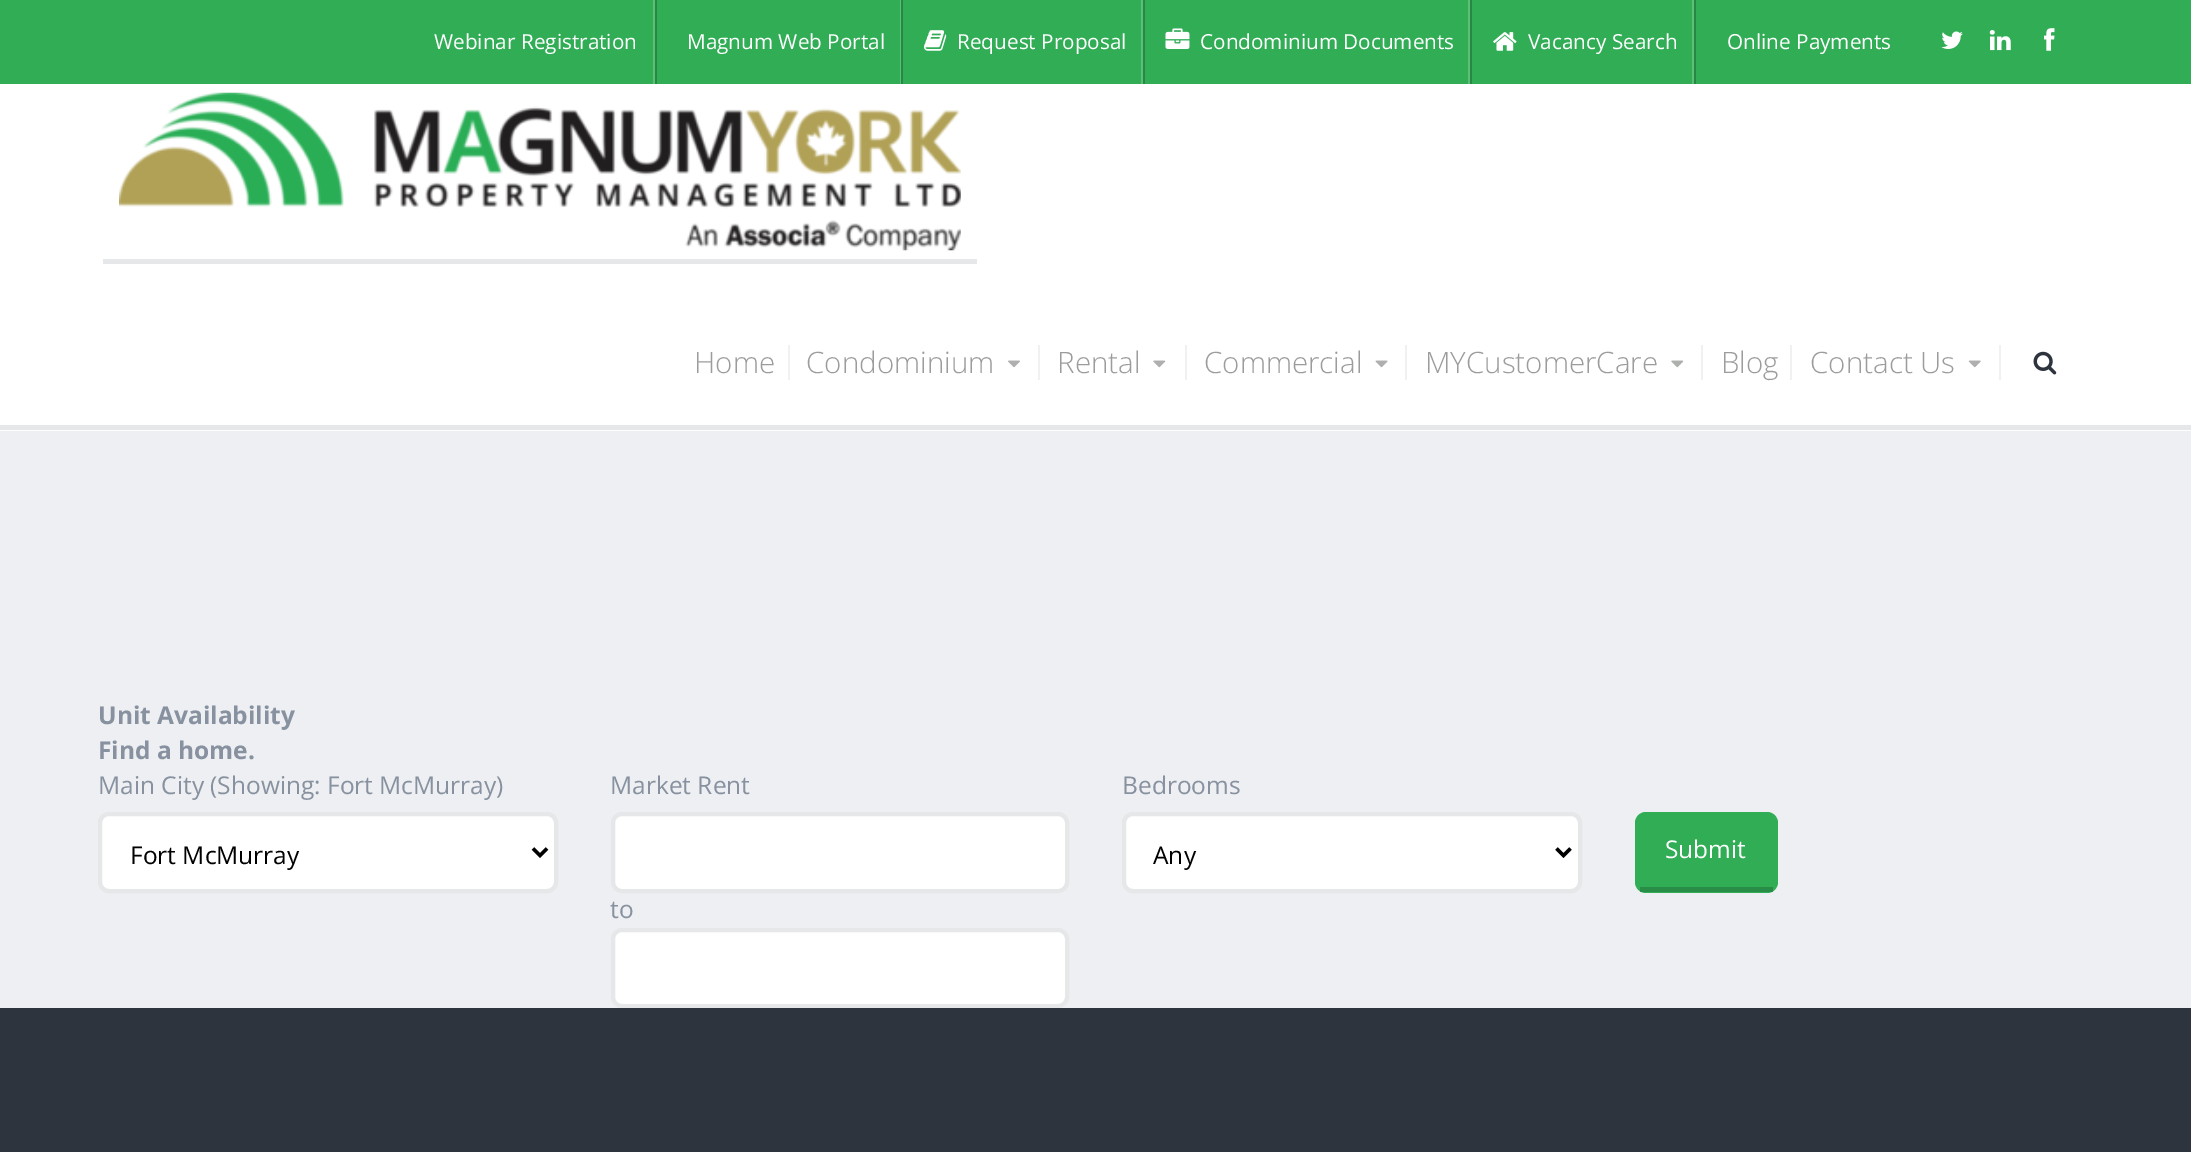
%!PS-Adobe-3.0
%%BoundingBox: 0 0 2191 1152
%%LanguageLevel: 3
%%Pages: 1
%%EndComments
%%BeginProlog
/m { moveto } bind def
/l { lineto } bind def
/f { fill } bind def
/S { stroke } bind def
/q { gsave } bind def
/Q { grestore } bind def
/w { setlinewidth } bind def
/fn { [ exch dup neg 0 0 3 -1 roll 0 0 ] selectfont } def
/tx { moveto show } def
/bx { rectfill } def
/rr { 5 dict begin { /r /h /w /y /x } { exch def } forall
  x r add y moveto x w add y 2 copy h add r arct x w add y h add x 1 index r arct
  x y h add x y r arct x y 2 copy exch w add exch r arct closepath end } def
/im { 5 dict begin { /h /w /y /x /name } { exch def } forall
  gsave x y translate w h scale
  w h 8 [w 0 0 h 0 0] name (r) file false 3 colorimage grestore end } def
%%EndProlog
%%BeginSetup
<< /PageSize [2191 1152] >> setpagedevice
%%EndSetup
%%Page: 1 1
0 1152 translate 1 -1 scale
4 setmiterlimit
0.929 0.937 0.949 setrgbcolor
0 0 2191 1152 bx
1 setgray
0 84 2191 347 bx
0.898 0.906 0.914 setrgbcolor
0 425 2191 5 bx
0.192 0.678 0.337 setrgbcolor
0 0 2191 84 bx
/OpenSans-Regular 20.75 fn
1 setgray
(Webinar Registration) 434 49 tx
0.365 0.745 0.475 setrgbcolor
653 0 2 84 bx
0.153 0.533 0.263 setrgbcolor
655 0 2 84 bx
1 setgray
(Magnum Web Portal) 687 49 tx
0.365 0.745 0.475 setrgbcolor
900 0 1 84 bx
0.153 0.533 0.263 setrgbcolor
901 0 2 84 bx
(image0.raw) 924 30 23 21 im
1 setgray
(Request Proposal) 957 49 tx
0.365 0.745 0.475 setrgbcolor
1141 0 2 84 bx
0.153 0.533 0.263 setrgbcolor
1143 0 2 84 bx
(image1.raw) 1165 28 25 21 im
1 setgray
(Condominium Documents) 1200 49 tx
0.365 0.745 0.475 setrgbcolor
1468 0 2 84 bx
0.153 0.533 0.263 setrgbcolor
1470 0 2 84 bx
(image2.raw) 1493 32 24 19 im
1 setgray
(Vacancy Search) 1528 49 tx
0.365 0.745 0.475 setrgbcolor
1692 0 2 84 bx
0.153 0.533 0.263 setrgbcolor
1694 0 2 84 bx
1 setgray
(Online Payments) 1727 49 tx
(image3.raw) 1941 31 22 18 im
(image4.raw) 1989 30 22 21 im
(image5.raw) 2044 28 11 23 im
0.898 0.906 0.914 setrgbcolor
103 259 874 5 bx
(image6.raw) 119 92 842 159 im
/OpenSans-Light 29.5 fn
0.612 setgray
(Home) 694 373 tx
0.945 setgray
788 345 2 35 bx
0.612 setgray
(Condominium) 806 373 tx
(image7.raw) 1008 360 12 8 im
0.945 setgray
1038 345 2 35 bx
0.612 setgray
(Rental) 1057 373 tx
(image8.raw) 1153 360 13 8 im
0.945 setgray
1185 345 2 35 bx
0.612 setgray
(Commercial) 1204 373 tx
(image9.raw) 1375 360 13 8 im
0.945 setgray
1405 345 2 35 bx
0.612 setgray
(MYCustomerCare) 1425 373 tx
(image8.raw) 1671 360 13 8 im
0.945 setgray
1701 345 2 35 bx
0.612 setgray
(Blog) 1721 373 tx
0.945 setgray
1790 345 2 35 bx
0.612 setgray
(Contact Us) 1810 373 tx
(image10.raw) 1968 360 13 8 im
0.945 setgray
1999 345 2 35 bx
(image11.raw) 2033 351 24 24 im
/OpenSans-Bold 24.5 fn
0.529 0.569 0.624 setrgbcolor
(Unit Availability) 98 724 tx
(Find a home.) 98 759 tx
/OpenSans-Regular 24.5 fn
(Main City \(Showing: Fort McMurray\)) 98 794 tx
1 setgray
100 814 456 77 9 rr q f Q
0.898 0.906 0.914 setrgbcolor
4 w
S
0 setgray
3.5 w
533 848.5 m 540 855.5 l 547 848.5 l S
(Fort McMurray) 130 864 tx
0.529 0.569 0.624 setrgbcolor
(Market Rent) 610 794 tx
1 setgray
613 814 454 77 9 rr q f Q
0.898 0.906 0.914 setrgbcolor
4 w
S
0.529 0.569 0.624 setrgbcolor
(to) 610 918 tx
1 setgray
613 930 454 76 9 rr q f Q
0.898 0.906 0.914 setrgbcolor
S
0.529 0.569 0.624 setrgbcolor
(Bedrooms) 1122 794 tx
1 setgray
1124 814 456 77 9 rr q f Q
0.898 0.906 0.914 setrgbcolor
S
0 setgray
3.5 w
1556.5 848.5 m 1563.5 855.5 l 1570.5 848.5 l S
(Any) 1153 864 tx
0.192 0.678 0.337 setrgbcolor
1635 812 143 81 11 rr f
0.157 0.553 0.275 setrgbcolor
1640 887 133 5 bx
1 setgray
(Submit) 1665 858 tx
0.176 0.204 0.243 setrgbcolor
0 1008 2191 144 bx
showpage
%%EOF
